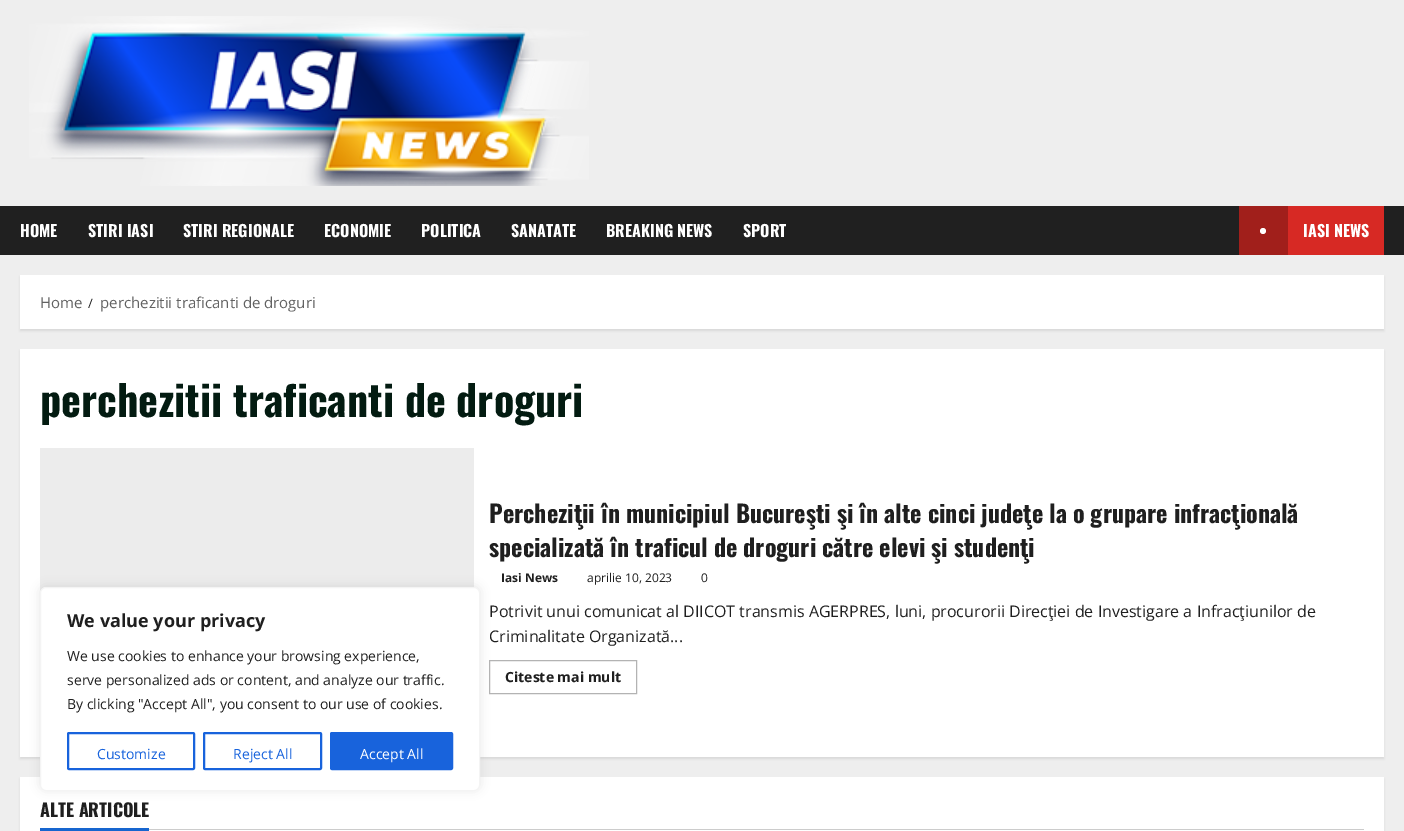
%!PS-Adobe-3.0
%%BoundingBox: 0 0 1404 831
%%LanguageLevel: 3
%%Pages: 1
%%EndComments
%%BeginProlog
/f { fill } bind def
/S { stroke } bind def
/q { gsave } bind def
/Q { grestore } bind def
/w { setlinewidth } bind def
/fn { [ exch dup neg 0 0 3 -1 roll 0 0 ] selectfont } def
/tx { moveto show } def
/bx { rectfill } def
/al { dup .setfillconstantalpha .setstrokeconstantalpha } def
/ci { newpath 0 360 arc closepath } def
/rr { 5 dict begin { /r /h /w /y /x } { exch def } forall
  x r add y moveto x w add y 2 copy h add r arct x w add y h add x 1 index r arct
  x y h add x y r arct x y 2 copy exch w add exch r arct closepath end } def
/sh { 12 dict begin { /a /b /q /h /w /y /x } { exch def } forall gsave /was 0 def
  9 -2 -9 { dup b mul 4 div /e exch def 1 sub .425 mul 2.718 exch exp 1 add a .99 .min exch div /now exch def
    1 1 now sub 1 was sub div sub al /was now def
    w h .min e 2 mul add 0 gt { x e sub y e sub w e 2 mul add h e 2 mul add
      q e add b .6 mul add w h .min 2 div e add .min 0 .max rr fill } if } for grestore end } def
/im { 5 dict begin { /h /w /y /x /name } { exch def } forall
  gsave x y translate w h scale
  w h 8 [w 0 0 h 0 0] name (r) file false 3 colorimage grestore end } def
%%EndProlog
%%BeginSetup
<< /PageSize [1404 831] /PageUsesTransparency true >> setpagedevice
%%EndSetup
%%Page: 1 1
0 .pushpdf14devicefilter
0 831 translate 1 -1 scale
4 setmiterlimit
0.933 setgray
0 0 1404 831 bx
(image0.raw) 29 16 560 170 im
0.125 setgray
0 206 1404 49 bx
/Oswald-Bold 16 fn
1 setgray
(HOME) 20 237 tx
(STIRI IASI) 88 237 tx
(STIRI REGIONALE) 183 237 tx
(ECONOMIE) 324 237 tx
(POLITICA) 421 237 tx
(SANATATE) 511 237 tx
(BREAKING NEWS) 606 237 tx
(SPORT) 743 237 tx
0.843 0.161 0.141 setrgbcolor
1288 206 96 49 bx
0.631 0.122 0.106 setrgbcolor
1239 206 49 49 bx
1 setgray
1263 231 3 ci f
(IASI NEWS) 1303 237 tx
0 setgray
20 277 1364 54 0 1 0.08 sh
1 setgray
20 275 1364 54 bx
/OpenSans-Regular 15 fn
0.384 setgray
(Home) 40 308 tx
/OpenSans-Regular 13 fn
0.122 setgray
(/) 88 308 tx
/OpenSans-Regular 15 fn
0.384 setgray
(perchezitii traficanti de droguri) 100 308 tx
0 setgray
20 351 1364 408 0 1 0.08 sh
1 setgray
20 349 1364 408 bx
/Oswald-Bold 42 fn
0.012 0.106 0.067 setrgbcolor
(perchezitii traficanti de droguri) 40 417 tx
0.925 setgray
40 448 434 145 bx
/Oswald-Bold 24 fn
0.122 setgray
(Percheziţii în municipiul Bucureşti şi în alte cinci judeţe la o grupare infracţională) 489 523 tx
(specializată în traficul de droguri către elevi şi studenţi) 489 557 tx
/OpenSans-Bold 12 fn
(Iasi News) 501 582 tx
/OpenSans-Regular 12 fn
(aprilie 10, 2023) 587 582 tx
(0) 701 582 tx
/OpenSans-Regular 16 fn
(Potrivit unui comunicat al DIICOT transmis AGERPRES, luni, procurorii Direcţiei de Investigare a Infracţiunilor de) 489 617 tx
(Criminalitate Organizată...) 489 642 tx
0.702 setgray
489.5 660.5 147 33 rectstroke
/OpenSans-Bold 14 fn
0.122 setgray
(Citeste mai mult) 505 682 tx
0 setgray
20 779 1364 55 0 1 0.08 sh
1 setgray
20 777 1364 54 bx
0.8 setgray
149 829 1215 1 bx
/Oswald-Bold 18 fn
0.122 setgray
(ALTE ARTICOLE) 40 817 tx
0.086 0.396 0.812 setrgbcolor
40 828 109 3 bx
0.675 0.671 0.671 setrgbcolor
40 586 440 204 6 5 0.3 sh
1 setgray
40.5 587.5 439 203 5.5 rr q f Q
0.957 setgray
S
/OpenSans-Bold 18 fn
0.122 setgray
(We value your privacy) 67 627 tx
/OpenSans-Regular 14 fn
(We use cookies to enhance your browsing experience,) 67 661 tx
(serve personalized ads or content, and analyze our traffic.) 67 685 tx
(By clicking "Accept All", you consent to our use of cookies.) 67 709 tx
0.094 0.388 0.863 setrgbcolor
2 w
68 733 126 36 1 rr S
(Customize) 97 759 tx
204 733 117 36 1 rr S
(Reject All) 233 759 tx
331 733 121 36 1 rr q f Q
S
1 setgray
(Accept All) 360 759 tx
.poppdf14devicefilter showpage
%%EOF
